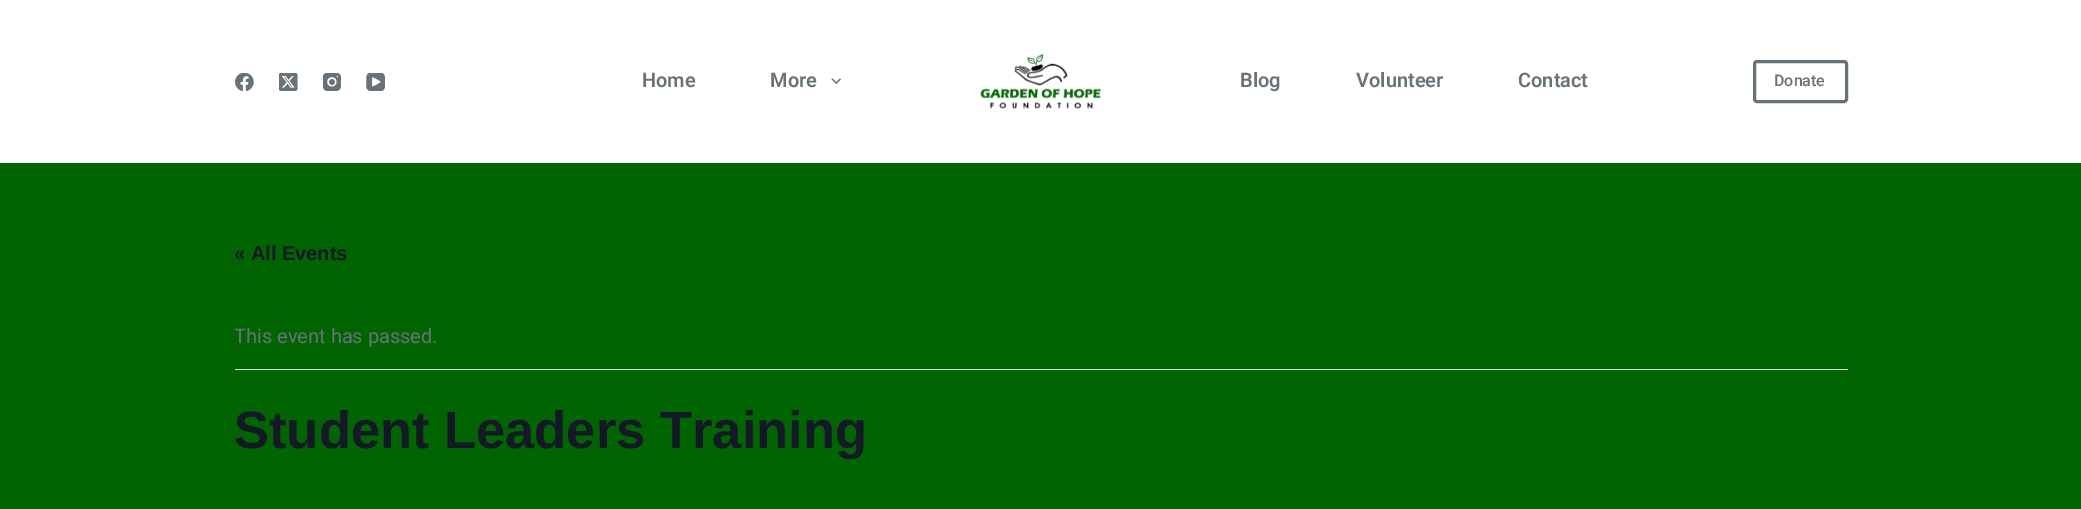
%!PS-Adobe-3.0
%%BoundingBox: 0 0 2081 509
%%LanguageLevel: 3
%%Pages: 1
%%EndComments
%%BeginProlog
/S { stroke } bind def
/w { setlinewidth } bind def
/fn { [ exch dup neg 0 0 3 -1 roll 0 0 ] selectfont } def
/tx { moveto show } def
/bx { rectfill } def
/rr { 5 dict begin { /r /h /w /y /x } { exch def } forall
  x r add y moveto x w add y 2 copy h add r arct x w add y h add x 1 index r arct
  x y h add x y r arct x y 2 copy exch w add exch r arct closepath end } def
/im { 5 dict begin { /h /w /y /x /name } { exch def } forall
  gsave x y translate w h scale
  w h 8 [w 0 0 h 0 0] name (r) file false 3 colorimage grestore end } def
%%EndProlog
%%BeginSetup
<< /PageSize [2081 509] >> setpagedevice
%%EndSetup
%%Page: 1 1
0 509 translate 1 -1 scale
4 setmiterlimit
0 0.396 0 setrgbcolor
0 0 2081 509 bx
1 setgray
0 0 2081 163 bx
(image0.raw) 235 73 19 18 im
(image1.raw) 279 73 19 18 im
(image2.raw) 323 73 18 18 im
(image3.raw) 366 73 19 18 im
/Roboto-SemiBold 20 fn
0.408 0.447 0.475 setrgbcolor
(Home) 642 87 tx
(More) 770 87 tx
(image4.raw) 831 78 10 6 im
(image5.raw) 980 53 121 56 im
(Blog) 1240 87 tx
(Volunteer) 1356 87 tx
(Contact) 1518 87 tx
3 w
1754.5 61.5 92 40 2.5 rr S
/Roboto-Medium 16 fn
(Donate) 1774 86 tx
/LiberationSans-Bold 20 fn
0.078 0.094 0.153 setrgbcolor
(« All Events) 234 260 tx
0.894 setgray
235 369 1613 1 bx
/Roboto-Regular 20 fn
0.408 0.447 0.475 setrgbcolor
(This event has passed.) 234 343 tx
/LiberationSans-Bold 52.5 fn
0.078 0.094 0.153 setrgbcolor
(Student Leaders Training) 234 448 tx
showpage
%%EOF
